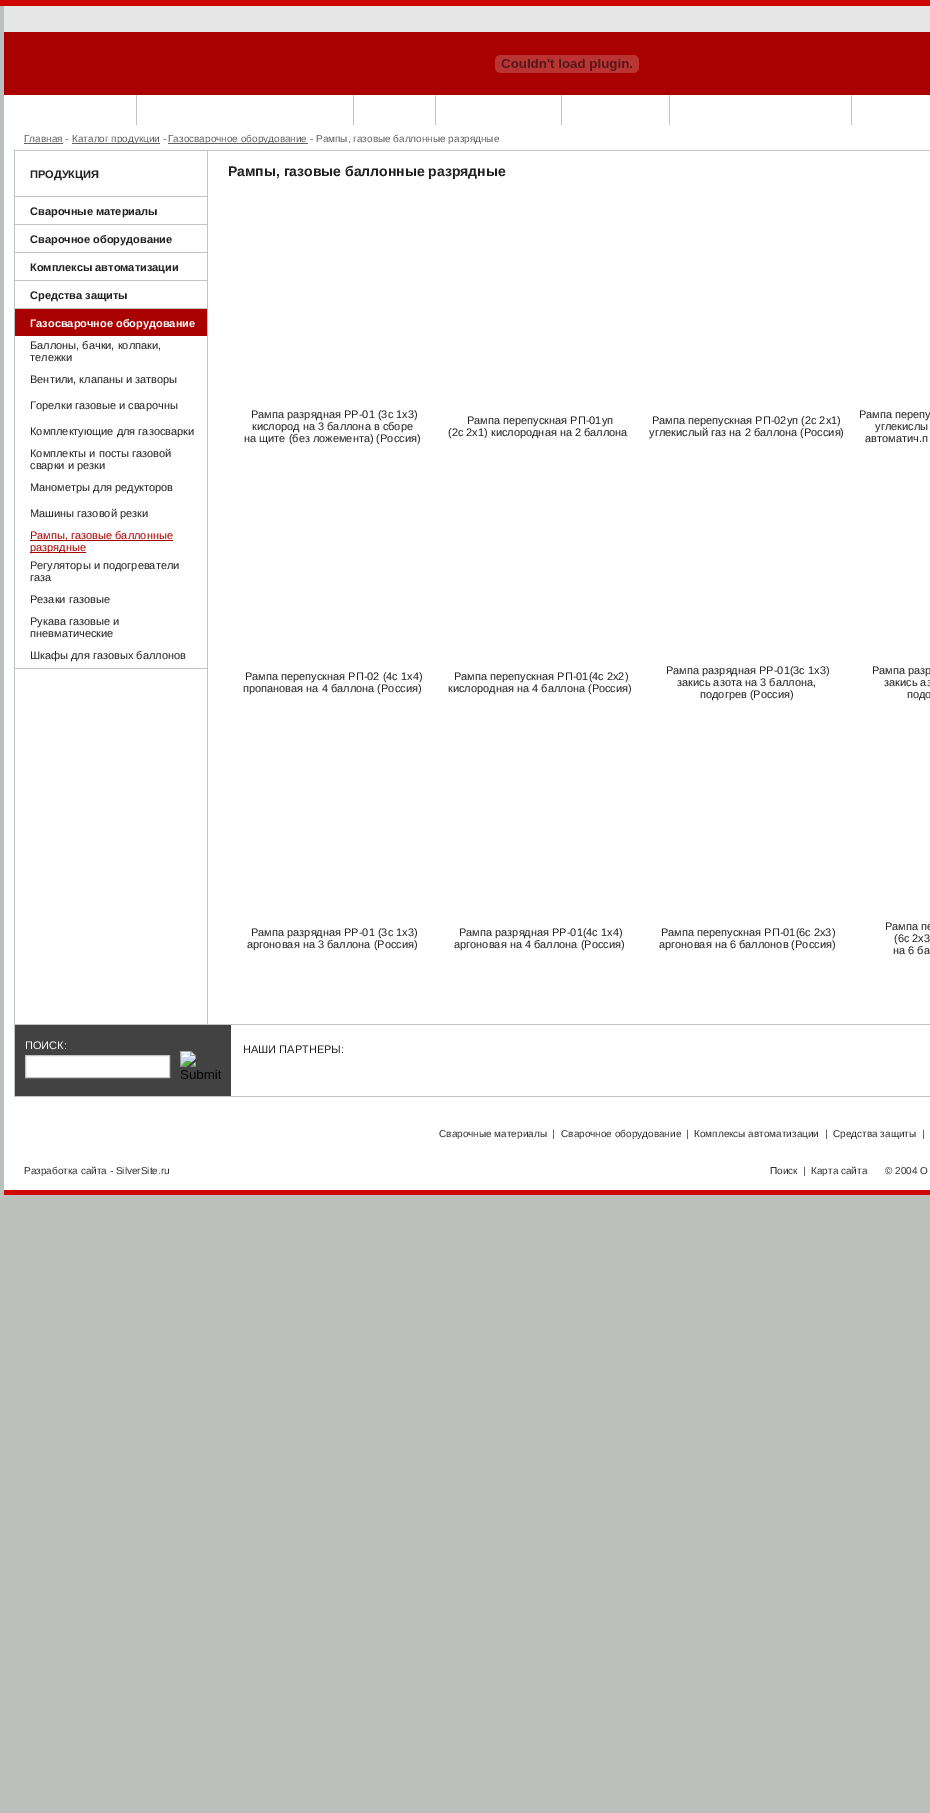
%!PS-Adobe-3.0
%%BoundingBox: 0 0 930 1813
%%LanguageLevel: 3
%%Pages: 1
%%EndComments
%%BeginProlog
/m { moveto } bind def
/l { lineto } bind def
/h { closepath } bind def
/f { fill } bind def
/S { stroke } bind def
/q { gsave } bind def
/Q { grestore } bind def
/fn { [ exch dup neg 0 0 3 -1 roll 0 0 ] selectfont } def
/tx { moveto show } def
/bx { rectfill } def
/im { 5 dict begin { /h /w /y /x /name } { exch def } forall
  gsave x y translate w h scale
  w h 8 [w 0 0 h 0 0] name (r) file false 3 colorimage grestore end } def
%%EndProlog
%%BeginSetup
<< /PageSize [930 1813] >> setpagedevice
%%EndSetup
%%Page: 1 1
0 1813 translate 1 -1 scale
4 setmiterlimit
0.737 0.753 0.741 setrgbcolor
0 0 930 1813 bx
0.812 0.027 0 setrgbcolor
0 0 930 6 bx
1 setgray
4 95 926 1095 bx
0.902 setgray
4 6 926 26 bx
0.663 0.004 0.004 setrgbcolor
4 32 926 63 bx
(image0.raw) 495 55 144 18 im
0.765 setgray
136 95 1 30 bx
353 95 1 30 bx
435 95 1 30 bx
561 95 1 30 bx
669 95 1 30 bx
851 95 1 30 bx
/LiberationSans-Regular 10 fn
0.376 setgray
(Главная -) 24 142 tx
24 143 39 1 bx
72 143 88 1 bx
(Каталог продукции -) 72 142 tx
168 143 140 1 bx
(Газосварочное оборудование - Рампы, газовые баллонные разрядные) 168 142 tx
0.765 setgray
14 150 916 1 bx
14 150 1 874 bx
207 151 1 873 bx
15 668 192 1 bx
/LiberationSans-Bold 11 fn
0.129 setgray
(ПРОДУКЦИЯ) 30 178 tx
0.765 setgray
15 196 192 1 bx
0.129 setgray
(Сварочные материалы) 30 215 tx
0.765 setgray
15 224 192 1 bx
0.129 setgray
(Сварочное оборудование) 30 243 tx
0.765 setgray
15 252 192 1 bx
0.129 setgray
(Комплексы автоматизации) 30 271 tx
0.765 setgray
15 280 192 1 bx
0.129 setgray
(Средства защиты) 30 299 tx
0.663 0.004 0.004 setrgbcolor
15 309 192 27 bx
0.765 setgray
15 308 192 1 bx
1 setgray
(Газосварочное оборудование) 30 327 tx
/LiberationSans-Regular 11 fn
0.129 setgray
(Баллоны, бачки, колпаки,) 30 349 tx
(тележки) 30 361 tx
(Вентили, клапаны и затворы) 30 383 tx
(Горелки газовые и сварочны) 30 409 tx
(Комплектующие для газосварки) 30 435 tx
(Комплекты и посты газовой) 30 457 tx
(сварки и резки) 30 469 tx
(Манометры для редукторов) 30 491 tx
(Машины газовой резки) 30 517 tx
0.663 0.004 0.004 setrgbcolor
30 540 143 1 bx
(Рампы, газовые баллонные) 30 539 tx
30 552 56 1 bx
(разрядные) 30 551 tx
0.129 setgray
(Регуляторы и подогреватели) 30 569 tx
(газа) 30 581 tx
(Резаки газовые) 30 603 tx
(Рукава газовые и) 30 625 tx
(пневматические) 30 637 tx
(Шкафы для газовых баллонов) 30 659 tx
/LiberationSans-Bold 14 fn
(Рампы, газовые баллонные разрядные) 228 176 tx
/LiberationSans-Regular 11 fn
(Рампа разрядная РР-01 \(3с 1х3\)) 251 418 tx
(кислород на 3 баллона в сборе) 252 430 tx
(на щите \(без ложемента\) \(Россия\)) 244 442 tx
(Рампа перепускная РП-01уп) 467 424 tx
(\(2с 2х1\) кислородная на 2 баллона) 448 436 tx
(Рампа перепускная РП-02уп \(2с 2х1\)) 652 424 tx
(углекислый газ на 2 баллона \(Россия\)) 649 436 tx
(Рампа перепу) 859 418 tx
(углекислы) 875 430 tx
(автоматич.п) 865 442 tx
(Рампа перепускная РП-02 \(4с 1х4\)) 245 680 tx
(пропановая на 4 баллона \(Россия\)) 243 692 tx
(Рампа перепускная РП-01\(4с 2х2\)) 454 680 tx
(кислородная на 4 баллона \(Россия\)) 448 692 tx
(Рампа разрядная РР-01\(3с 1х3\)) 666 674 tx
(закись азота на 3 баллона,) 677 686 tx
(подогрев \(Россия\)) 700 698 tx
(Рампа разр) 872 674 tx
(закись аз) 884 686 tx
(подо) 907 698 tx
(Рампа разрядная РР-01 \(3c 1х3\)) 251 936 tx
(аргоновая на 3 баллона \(Россия\)) 247 948 tx
(Рампа разрядная РР-01\(4c 1х4\)) 459 936 tx
(аргоновая на 4 баллона \(Россия\)) 454 948 tx
(Рампа перепускная РП-01\(6c 2х3\)) 661 936 tx
(аргоновая на 6 баллонов \(Россия\)) 659 948 tx
(Рампа пе) 885 930 tx
(\(6c 2х3) 894 942 tx
(на 6 ба) 893 954 tx
0.259 setgray
15 1025 216 71 bx
0.765 setgray
14 1024 916 1 bx
14 1096 916 1 bx
14 1024 1 73 bx
1 setgray
(ПОИСК:) 25 1049 tx
25.5 1055.5 m 169.5 1055.5 l 169.5 1077.5 l 25.5 1077.5 l h q f Q
0.765 setgray
S
(image1.raw) 180 1051 41 28 im
0.129 setgray
(НАШИ ПАРТНЕРЫ:) 243 1053 tx
/LiberationSans-Regular 10 fn
0.188 0.173 0.176 setrgbcolor
(Сварочные материалы) 439 1137 tx
(|) 552 1137 tx
(Сварочное оборудование) 561 1137 tx
(|) 686 1137 tx
(Комплексы автоматизации) 694 1137 tx
(|) 825 1137 tx
(Средства защиты) 833 1137 tx
(|) 922 1137 tx
(Разработка сайта - SilverSite.ru) 24 1174 tx
(Поиск) 770 1174 tx
(|) 803 1174 tx
(Карта сайта) 811 1174 tx
(© 2004 О) 885 1174 tx
0.812 0.027 0 setrgbcolor
4 1190 926 5 bx
showpage
%%EOF
